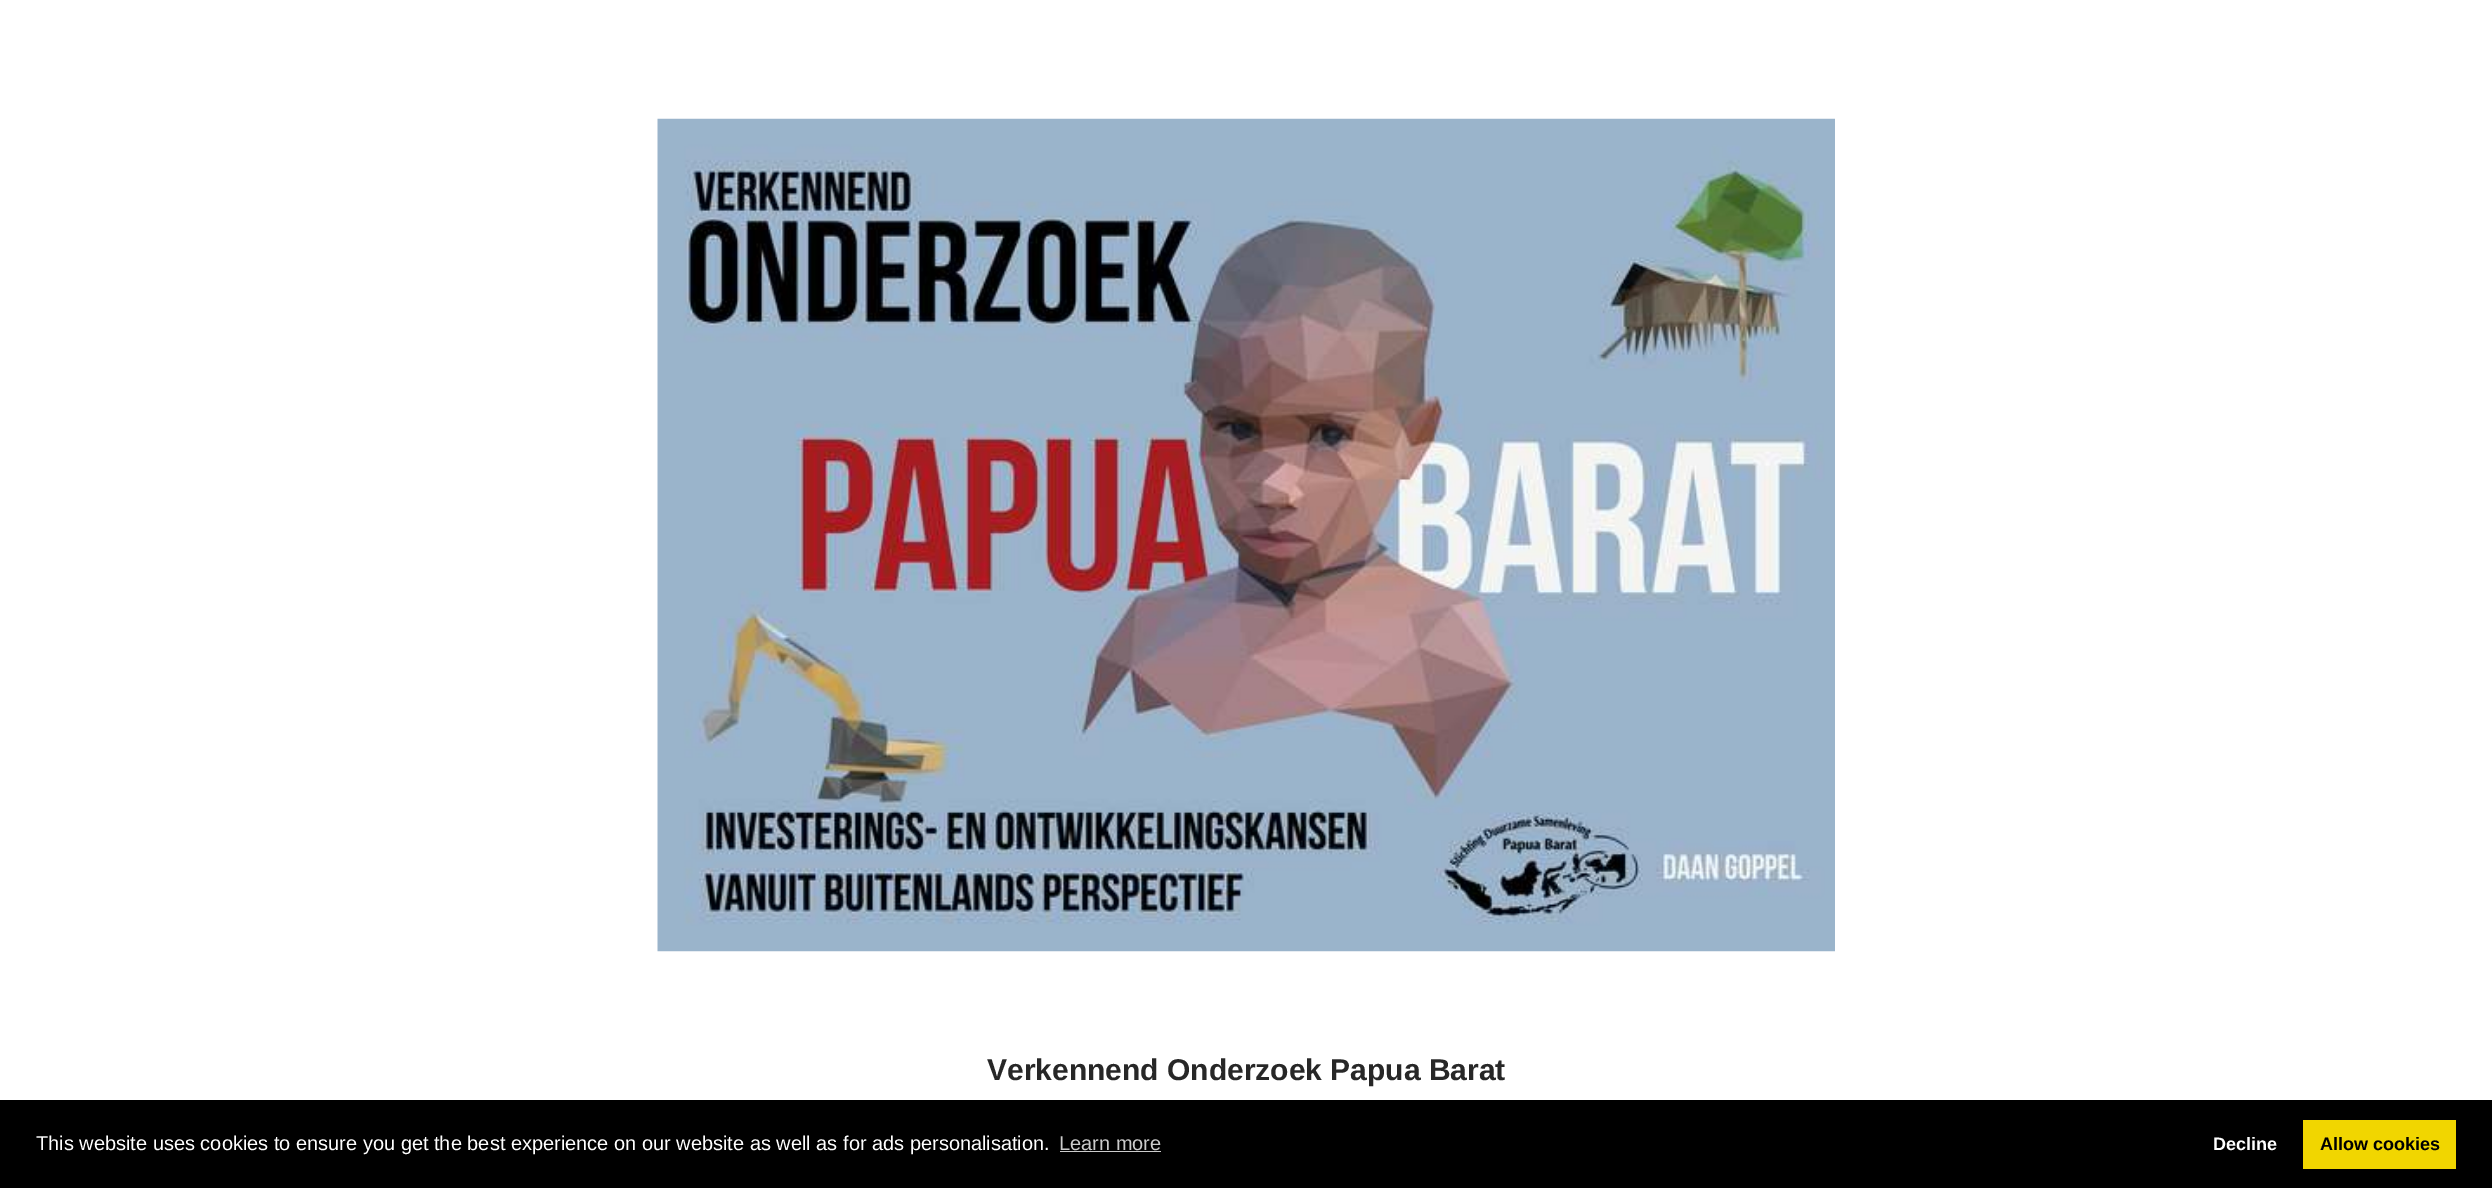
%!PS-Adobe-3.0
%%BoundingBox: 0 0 2492 1188
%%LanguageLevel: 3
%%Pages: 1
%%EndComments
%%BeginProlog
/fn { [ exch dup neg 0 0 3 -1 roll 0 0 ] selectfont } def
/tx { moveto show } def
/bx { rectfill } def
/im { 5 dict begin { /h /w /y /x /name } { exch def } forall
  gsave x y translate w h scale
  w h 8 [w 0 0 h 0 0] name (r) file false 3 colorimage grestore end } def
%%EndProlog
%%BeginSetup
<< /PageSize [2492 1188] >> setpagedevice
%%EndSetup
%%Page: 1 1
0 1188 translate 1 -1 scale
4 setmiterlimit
1 setgray
0 0 2492 1188 bx
(image0.raw) 657 118 1178 834 im
/LiberationSans-Bold 30 fn
0.153 setgray
(Verkennend Onderzoek Papua Barat) 987 1080 tx
0 setgray
0 1100 2492 88 bx
/LiberationSans-Regular 20 fn
1 setgray
(This website uses cookies to ensure you get the best experience on our website as well as for ads personalisation.) 36 1150 tx
0.8 setgray
(Learn more) 1059 1150 tx
1060 1151 101 1 bx
/LiberationSans-Bold 18 fn
1 setgray
(Decline) 2213 1150 tx
0.945 0.839 0 setrgbcolor
2303 1120 153 49 bx
0 setgray
(Allow cookies) 2320 1150 tx
showpage
%%EOF
